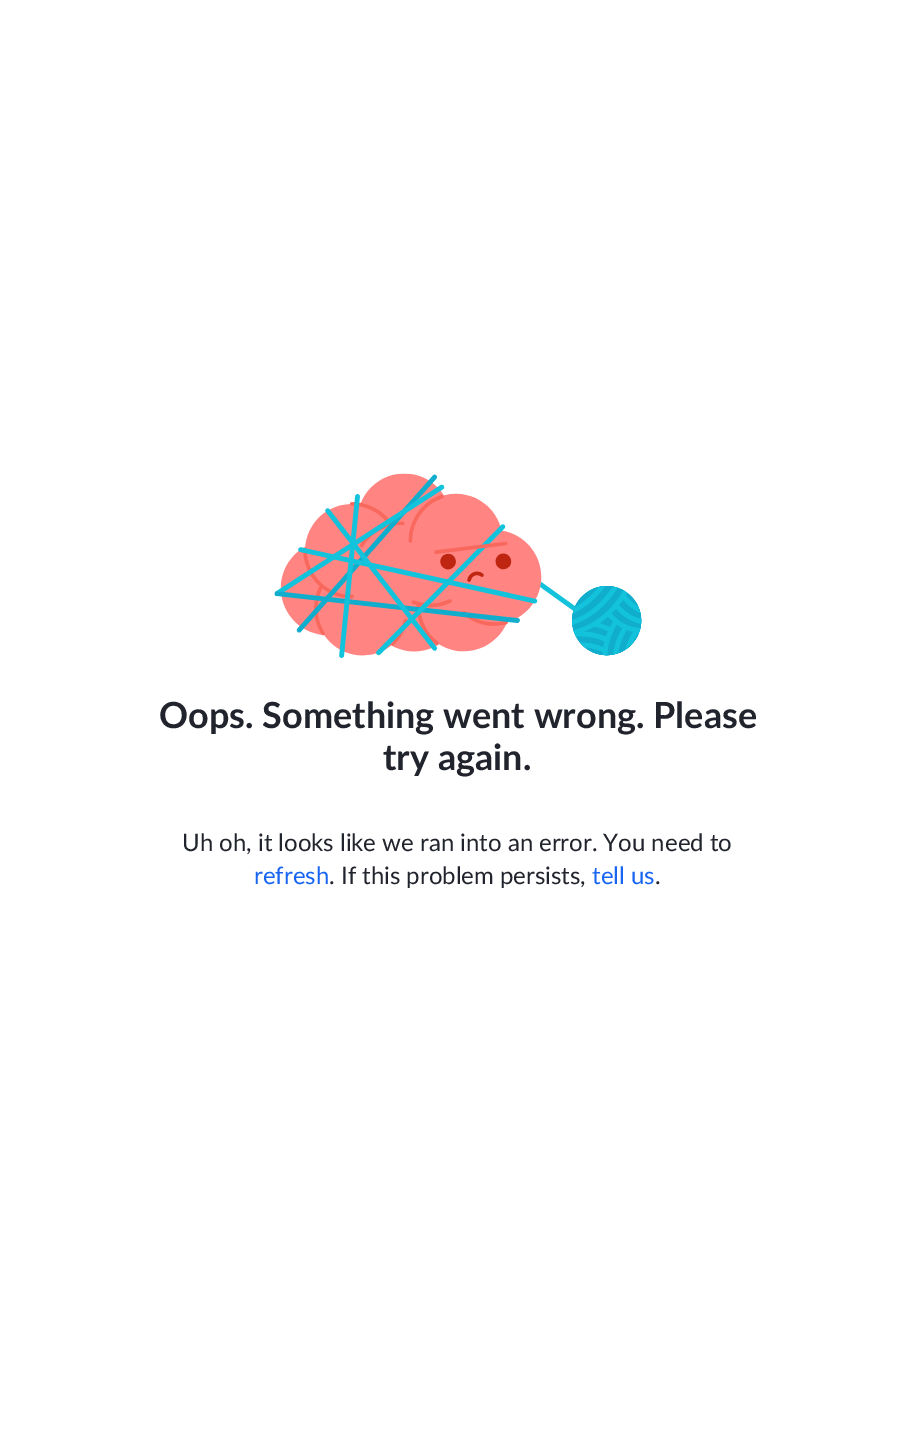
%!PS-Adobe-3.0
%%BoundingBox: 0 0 915 1453
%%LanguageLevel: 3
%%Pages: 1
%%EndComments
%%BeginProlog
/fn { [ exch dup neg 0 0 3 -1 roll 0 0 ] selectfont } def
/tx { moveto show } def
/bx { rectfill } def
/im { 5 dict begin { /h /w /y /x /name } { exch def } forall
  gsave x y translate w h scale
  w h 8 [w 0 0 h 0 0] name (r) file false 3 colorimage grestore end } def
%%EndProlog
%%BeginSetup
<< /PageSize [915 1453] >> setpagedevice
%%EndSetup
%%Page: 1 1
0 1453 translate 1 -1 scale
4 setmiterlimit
1 setgray
0 0 915 1453 bx
(image0.raw) 274 473 368 185 im
/Lato-Bold 36 fn
0.129 0.141 0.173 setrgbcolor
(Oops. Something went wrong. Please) 159 728 tx
(try again.) 383 770 tx
/Lato-Regular 24 fn
(Uh oh, it looks like we ran into an error. You need to) 182 851 tx
0.094 0.396 0.949 setrgbcolor
(refresh) 254 884 tx
0.129 0.141 0.173 setrgbcolor
(. If this problem persists,) 329 884 tx
0.094 0.396 0.949 setrgbcolor
(tell us) 592 884 tx
0.129 0.141 0.173 setrgbcolor
(.) 655 884 tx
showpage
%%EOF
